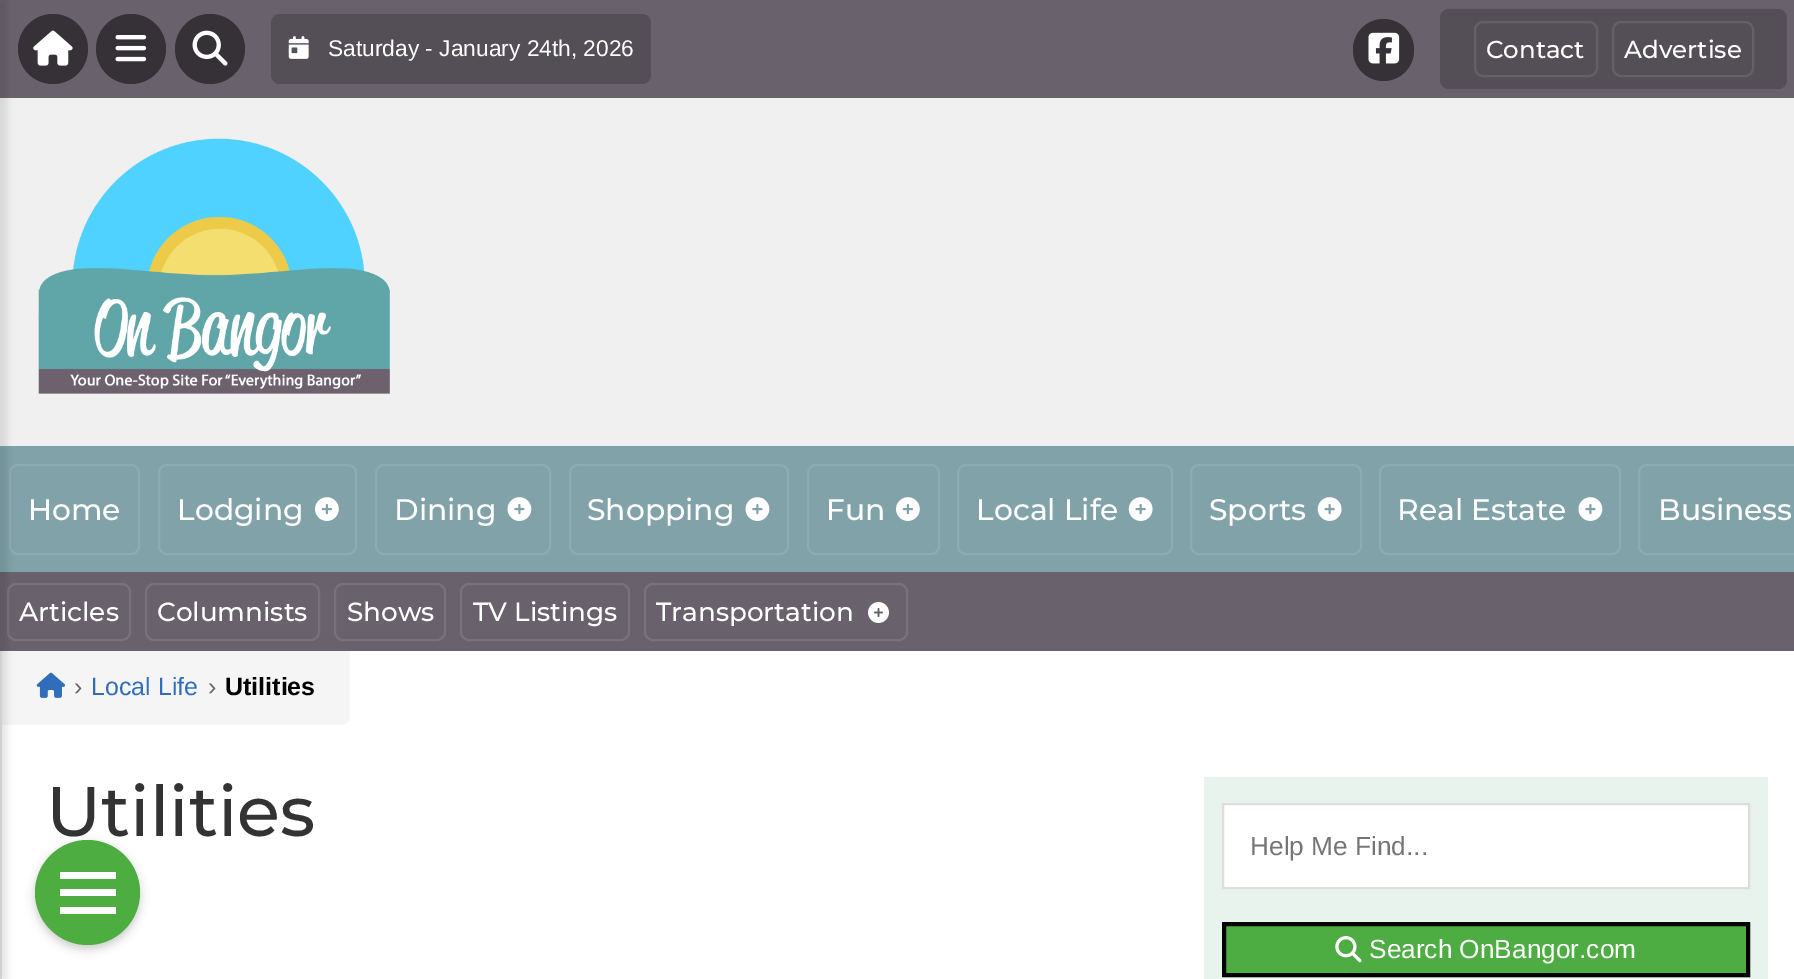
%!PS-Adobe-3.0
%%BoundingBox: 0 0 1794 979
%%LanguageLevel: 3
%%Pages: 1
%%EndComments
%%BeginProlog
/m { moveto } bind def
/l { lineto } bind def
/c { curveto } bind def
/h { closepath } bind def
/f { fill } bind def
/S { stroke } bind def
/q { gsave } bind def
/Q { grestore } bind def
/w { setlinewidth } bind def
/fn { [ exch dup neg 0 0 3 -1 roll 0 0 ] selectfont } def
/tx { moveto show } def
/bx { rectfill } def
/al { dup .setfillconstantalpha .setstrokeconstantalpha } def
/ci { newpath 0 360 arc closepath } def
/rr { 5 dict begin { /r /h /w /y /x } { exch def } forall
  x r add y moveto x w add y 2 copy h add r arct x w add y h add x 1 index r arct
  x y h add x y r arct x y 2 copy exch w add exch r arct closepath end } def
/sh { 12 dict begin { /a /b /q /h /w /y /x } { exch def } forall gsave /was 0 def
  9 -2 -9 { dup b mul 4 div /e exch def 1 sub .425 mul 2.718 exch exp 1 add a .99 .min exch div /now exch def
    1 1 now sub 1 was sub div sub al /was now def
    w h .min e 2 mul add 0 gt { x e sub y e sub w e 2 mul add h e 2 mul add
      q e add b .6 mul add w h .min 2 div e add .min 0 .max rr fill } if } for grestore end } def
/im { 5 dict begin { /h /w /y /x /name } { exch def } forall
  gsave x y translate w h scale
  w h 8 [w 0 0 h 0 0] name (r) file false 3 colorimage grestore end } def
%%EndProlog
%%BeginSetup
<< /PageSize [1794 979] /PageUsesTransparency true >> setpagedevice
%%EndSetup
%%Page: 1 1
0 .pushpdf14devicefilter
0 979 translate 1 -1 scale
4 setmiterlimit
0.941 setgray
0 0 1794 979 bx
0.412 0.384 0.427 setrgbcolor
0 0 1794 98 bx
0.208 0.192 0.216 setrgbcolor
53 49 35 ci f
0.506 0.635 0.659 setrgbcolor
0 446 1794 126 bx
0.557 0.671 0.694 setrgbcolor
2 w
10 465 129 89 8 rr S
0.412 0.384 0.427 setrgbcolor
0 572 1794 79 bx
0.471 0.447 0.486 setrgbcolor
8 584 122 56 8 rr S
1 setgray
2 651 1792 328 bx
0.902 setgray
0 651 2 328 bx
0.961 setgray
2 651 m 350 651 l 350 716 l 350 721 346 725 341 725 c 2 725 l h f
0 setgray
-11 0 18 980 0 3.5 0.1 sh
(image0.raw) 33 30 40 36 im
0.208 0.192 0.216 setrgbcolor
131 49 35 ci f
(image1.raw) 115 35 32 27 im
210 49 35 ci f
(image2.raw) 192 30 36 36 im
0.329 0.306 0.341 setrgbcolor
271 14 380 70 9 rr f
(image3.raw) 288 36 21 23 im
/LiberationSans-Regular 22.75 fn
1 setgray
(Saturday - January 24th, 2026) 328 56 tx
0.208 0.192 0.216 setrgbcolor
1353 19 61 62 30.5 rr f
(image4.raw) 1368 32 32 32 im
0.329 0.306 0.341 setrgbcolor
1440 9 347 80 9 rr f
0.396 0.376 0.408 setrgbcolor
1475 22 122 54 8 rr S
/Montserrat-Medium 24.5 fn
1 setgray
(Contact) 1486 58 tx
0.396 0.376 0.408 setrgbcolor
1613 22 140 54 8 rr S
1 setgray
(Advertise) 1624 58 tx
(image5.raw) 38 138 352 256 im
/Montserrat-Medium 29.75 fn
(Home) 28 520 tx
0.557 0.671 0.694 setrgbcolor
159 465 197 89 8 rr S
1 setgray
(Lodging) 177 520 tx
(image6.raw) 315 497 24 24 im
0.557 0.671 0.694 setrgbcolor
376 465 174 89 8 rr S
1 setgray
(Dining) 394 520 tx
(image7.raw) 507 497 25 24 im
0.557 0.671 0.694 setrgbcolor
570 465 218 89 8 rr S
1 setgray
(Shopping) 587 520 tx
(image7.raw) 745 497 25 24 im
0.557 0.671 0.694 setrgbcolor
808 465 131 89 8 rr S
1 setgray
(Fun) 826 520 tx
(image6.raw) 896 497 24 24 im
0.557 0.671 0.694 setrgbcolor
958 465 214 89 8 rr S
1 setgray
(Local Life) 976 520 tx
(image8.raw) 1128 497 25 24 im
0.557 0.671 0.694 setrgbcolor
1191 465 170 89 8 rr S
1 setgray
(Sports) 1209 520 tx
(image8.raw) 1317 497 25 24 im
0.557 0.671 0.694 setrgbcolor
1380 465 240 89 8 rr S
1 setgray
(Real Estate) 1397 520 tx
(image7.raw) 1578 497 25 24 im
0.557 0.671 0.694 setrgbcolor
1639 465 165 89 8 rr S
1 setgray
(Business) 1658 520 tx
/Montserrat-Medium 26.25 fn
(Articles) 19 621 tx
0.471 0.447 0.486 setrgbcolor
146 584 173 56 8 rr S
1 setgray
(Columnists) 157 621 tx
0.471 0.447 0.486 setrgbcolor
335 584 110 56 8 rr S
1 setgray
(Shows) 347 621 tx
0.471 0.447 0.486 setrgbcolor
461 584 168 56 8 rr S
1 setgray
(TV Listings) 473 621 tx
0.471 0.447 0.486 setrgbcolor
645 584 262 56 8 rr S
1 setgray
(Transportation) 656 621 tx
(image9.raw) 868 602 21 21 im
(image10.raw) 36 672 30 26 im
/LiberationSans-Regular 25 fn
0.4 setgray
(›) 74 695 tx
0.188 0.431 0.733 setrgbcolor
(Local Life) 91 695 tx
0.4 setgray
(›) 208 695 tx
/LiberationSans-Bold 25 fn
0 setgray
(Utilities) 225 695 tx
/Montserrat-Medium 70 fn
0.2 setgray
(Utilities) 46 836 tx
0.91 0.953 0.933 setrgbcolor
1204 777 564 202 bx
1 setgray
1223 804 m 1749 804 l 1749 888 l 1223 888 l h q f Q
0.867 setgray
S
/LiberationSans-Regular 26.25 fn
0.459 setgray
(Help Me Find...) 1250 855 tx
0.306 0.678 0.259 setrgbcolor
1224 924 m 1748 924 l 1748 975 l 1224 975 l h q f Q
0 setgray
4 w
S
(image11.raw) 1335 936 27 27 im
1 setgray
(Search OnBangor.com) 1369 958 tx
0 setgray
35 844 105 105 52.5 4.5 0.2 sh
0.302 0.678 0.255 setrgbcolor
87.5 892.5 52.5 ci f
1 setgray
60 872 56 7 bx
60 889 56 7 bx
60 907 56 7 bx
.poppdf14devicefilter showpage
%%EOF
